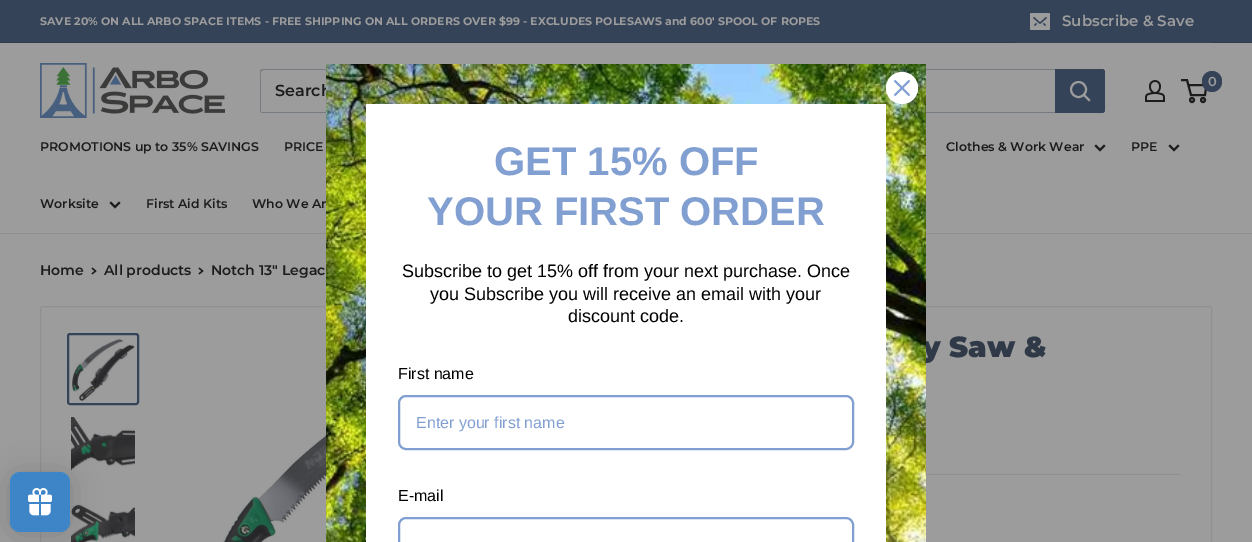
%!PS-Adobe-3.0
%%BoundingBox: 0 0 1252 542
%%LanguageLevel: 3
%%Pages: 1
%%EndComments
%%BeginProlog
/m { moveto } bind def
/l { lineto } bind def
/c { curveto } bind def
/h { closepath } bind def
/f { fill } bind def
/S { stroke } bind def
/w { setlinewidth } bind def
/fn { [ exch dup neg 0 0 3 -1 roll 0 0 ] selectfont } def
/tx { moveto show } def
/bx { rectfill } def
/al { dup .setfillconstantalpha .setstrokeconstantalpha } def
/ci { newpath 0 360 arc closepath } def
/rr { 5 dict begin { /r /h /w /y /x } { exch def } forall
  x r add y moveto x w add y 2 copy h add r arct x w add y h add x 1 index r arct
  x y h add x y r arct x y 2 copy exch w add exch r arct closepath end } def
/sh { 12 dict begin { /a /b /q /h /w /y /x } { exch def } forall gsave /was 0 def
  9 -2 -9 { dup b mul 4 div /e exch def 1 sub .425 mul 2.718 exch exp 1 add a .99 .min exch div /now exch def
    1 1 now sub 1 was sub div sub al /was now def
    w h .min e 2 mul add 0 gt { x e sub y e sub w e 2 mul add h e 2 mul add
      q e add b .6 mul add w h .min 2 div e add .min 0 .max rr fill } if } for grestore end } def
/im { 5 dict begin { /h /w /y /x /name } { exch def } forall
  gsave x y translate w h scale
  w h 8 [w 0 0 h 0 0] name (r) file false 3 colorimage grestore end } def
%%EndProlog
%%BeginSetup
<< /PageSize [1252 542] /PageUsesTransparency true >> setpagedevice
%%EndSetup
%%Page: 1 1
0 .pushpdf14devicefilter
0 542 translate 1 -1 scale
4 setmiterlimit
0.612 setgray
0 0 1252 542 bx
0.208 0.263 0.345 setrgbcolor
0 0 1252 42 bx
0.18 0.235 0.318 setrgbcolor
0 42 1252 1 bx
/Montserrat-Bold 11 fn
0.612 setgray
(SAVE 20% ON ALL ARBO SPACE ITEMS - FREE SHIPPING ON ALL ORDERS OVER $99 - EXCLUDES POLESAWS and 600' SPOOL OF ROPES) 40 25 tx
0.208 0.263 0.345 setrgbcolor
1015 42 197 1 bx
(image0.raw) 1030 13 20 17 im
/Montserrat-SemiBold 15 fn
0.612 setgray
(Subscribe & Save) 1062 26 tx
(image1.raw) 40 63 185 55 im
(image2.raw) 1145 80 20 22 im
0.11 setgray
2 w
1192 100 2 ci S
1203 100 2 ci S
1188.5 85 m 1206.5 85 l 1205 95 l 1191 95 l 1187 80 l 1181 80 l S
0.208 0.263 0.345 setrgbcolor
1202 71 20 21 10 rr f
/Montserrat-SemiBold 13 fn
0.612 setgray
(0) 1208 86 tx
0.463 0.478 0.506 setrgbcolor
261 112 m 261 113 262 113 263 113 c 1102 113 l 1104 113 1105 112 1105 110 c 1105 72 l 1105 71 1105 70 1104 70 c 1104 103 l 1104 105 1106 112 1101 112 c h f
264 70 m 1104 70 l 1104 69 1103 69 1102 69 c 263 69 l 261 69 260 70 260 72 c 260 110 l 260 111 260 112 261 112 c 261 79 l 261 77 259 70 264 70 c h f
/Montserrat-SemiBold 16 fn
0.11 setgray
(Search) 275 96 tx
0.208 0.263 0.345 setrgbcolor
1055 69 m 1102 69 l 1103.5 69 1105 70.5 1105 72 c 1105 110 l 1105 111.5 1103.5 113 1102 113 c 1055 113 l h f
0.612 setgray
2 setlinecap
1089 100 m 1084 95 l S
0 setlinecap
1078.5 89.5 7.5 ci S
0.565 setgray
0 233 1252 1 bx
/Montserrat-SemiBold 12.5 fn
0.11 setgray
(PROMOTIONS up to 35% SAVINGS) 40 151 tx
(PRICE) 284 151 tx
(Clothes & Work Wear) 946 151 tx
2 setlinecap
1104 146 m 1100 150 l 1096 146 l S
(PPE) 1131 151 tx
1178 146 m 1174 150 l 1170 146 l S
(Worksite) 40 208 tx
119 203 m 115 207 l 111 203 l S
(First Aid Kits) 146 208 tx
(Who We Ar) 252 208 tx
0.565 setgray
1 w
0 setlinecap
40.5 306.5 570 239 2.5 rr S
641.5 306.5 570 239 2.5 rr S
/Montserrat-Black 29 fn
0.188 0.224 0.278 setrgbcolor
(y Saw &) 922 357 tx
(image4.raw) 326 64 600 478 im
1 setgray
902 88 16 ci f
(image3.raw) 894 80 16 16 im
366 104 520 438 bx
/LiberationSans-Bold 40 fn
0.506 0.624 0.82 setrgbcolor
(GET 15% OFF) 494 175 tx
(YOUR FIRST ORDER) 427 225 tx
/LiberationSans-Regular 18 fn
0 setgray
(Subscribe to get 15% off from your next purchase. Once) 402 277 tx
(you Subscribe you will receive an email with your) 430 300 tx
(discount code.) 568 322 tx
/LiberationSans-Regular 16 fn
(First name) 398 379 tx
0.506 0.624 0.82 setrgbcolor
2 w
399 396 454 53 7 rr S
(Enter your first name) 416 428 tx
0 setgray
(E-mail) 398 501 tx
0.506 0.624 0.82 setrgbcolor
399 518 454 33 7 rr S
/Montserrat-SemiBold 14 fn
0.11 setgray
(Home) 40 275 tx
1.3 w
2 setlinecap
92.5 268.5 m 95.5 271 l 92.5 273.5 l S
(All products) 104 275 tx
199.5 268.5 m 202.5 271 l 199.5 273.5 l S
(Notch 13" Legac) 211 275 tx
0.208 0.263 0.345 setrgbcolor
2 w
0 setlinecap
68 334 70 70 2 rr S
(image5.raw) 71 339 64 62 im
(image6.raw) 71 417 64 54 im
(image7.raw) 71 504 64 38 im
(image8.raw) 223 350 103 192 im
0.565 setgray
926 474 255 1 bx
0 setgray
10 474 60 60 10 15 0.15 sh
0.239 0.522 0.776 setrgbcolor
10 472 60 60 10 rr f
(image9.raw) 28 488 24 28 im
.poppdf14devicefilter showpage
%%EOF
